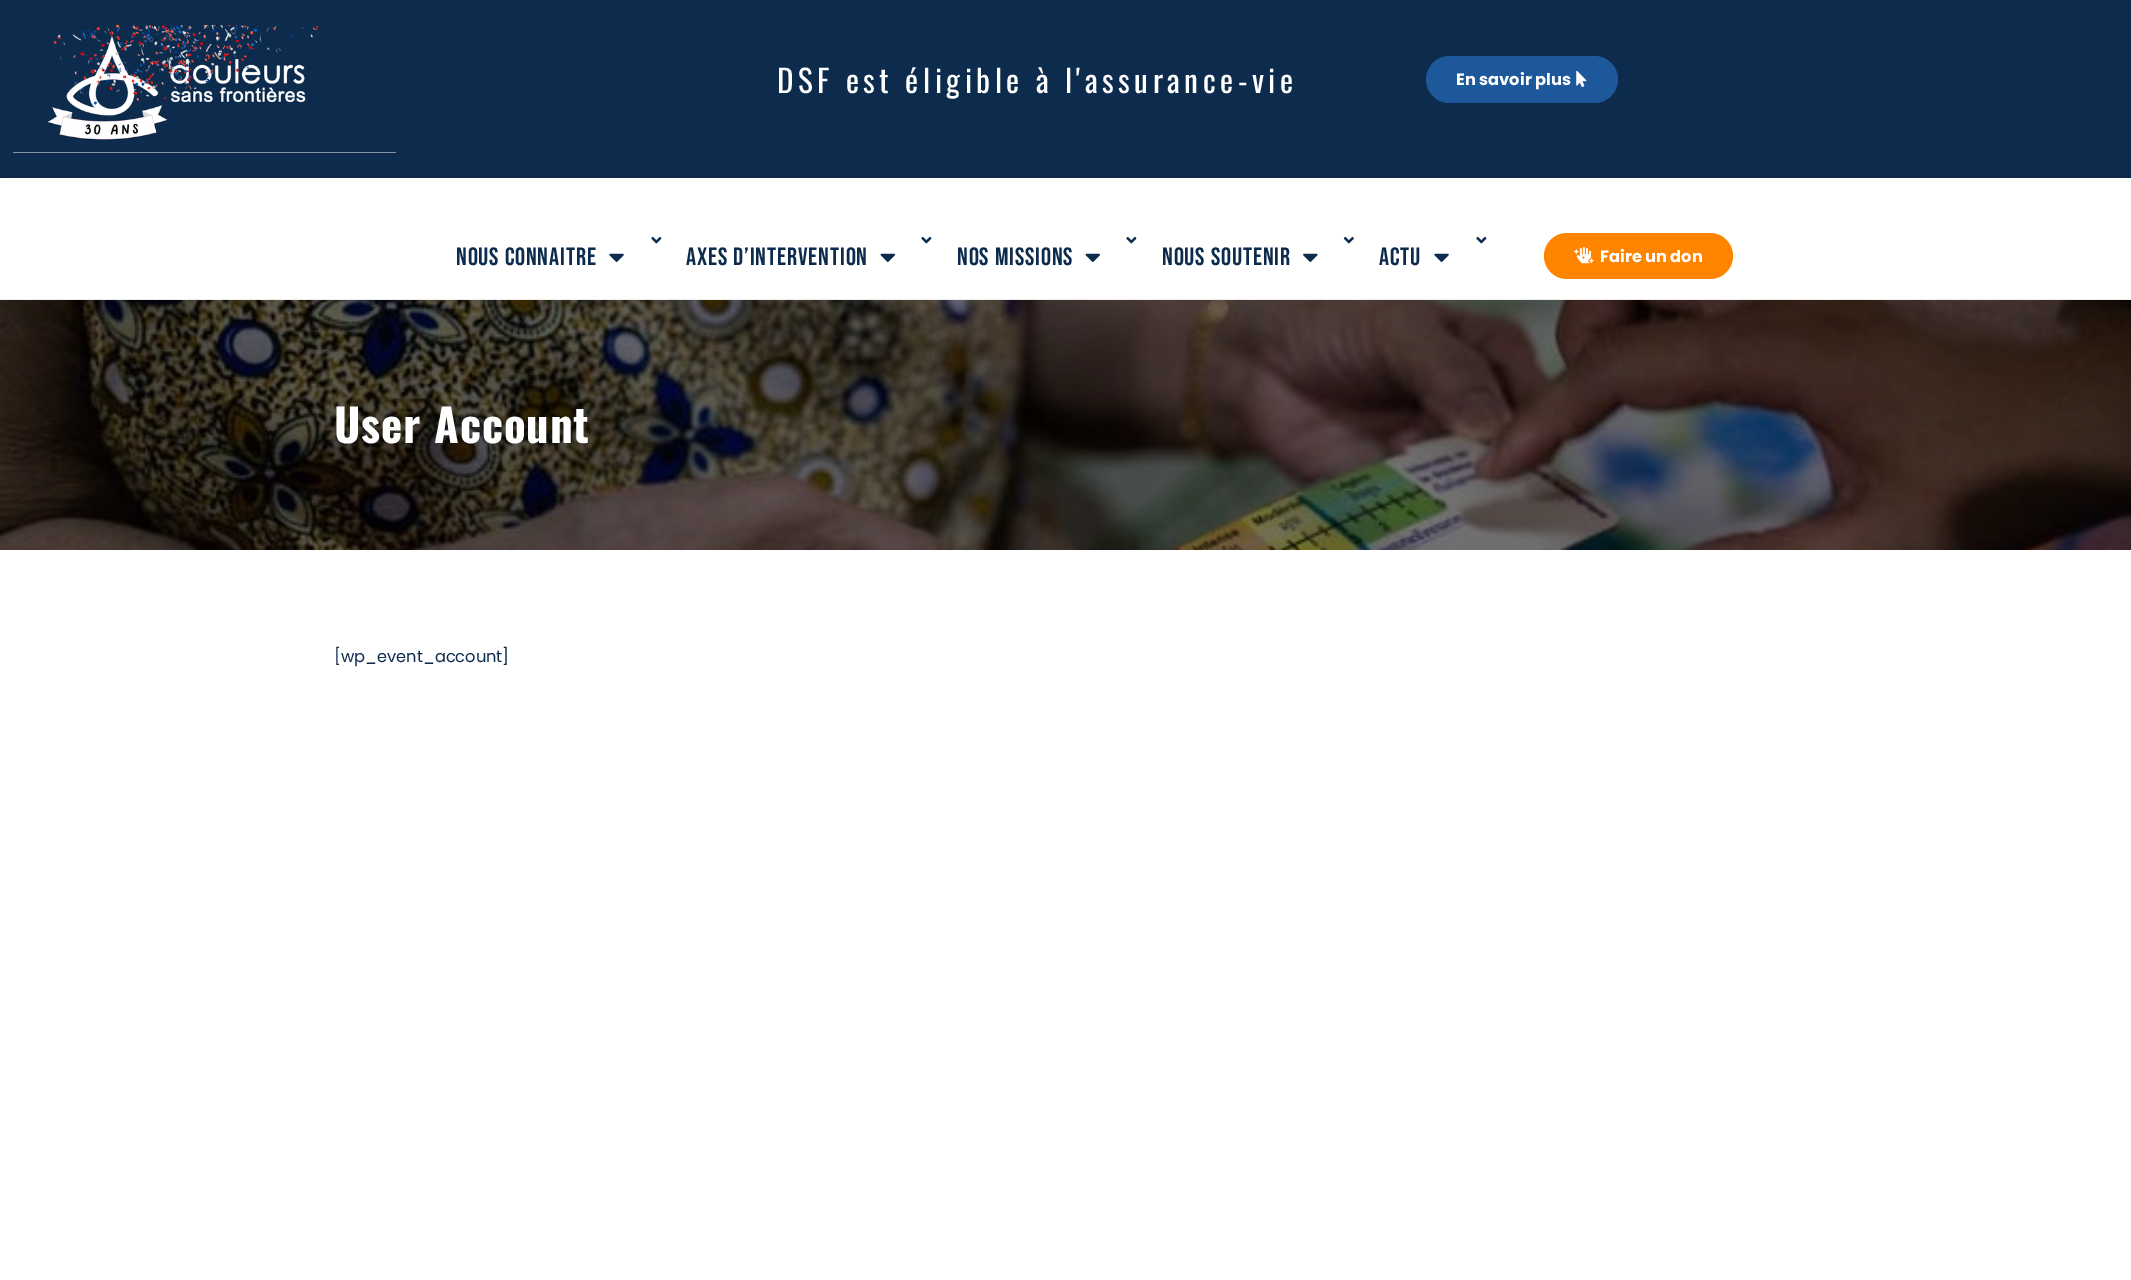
%!PS-Adobe-3.0
%%BoundingBox: 0 0 2131 1280
%%LanguageLevel: 3
%%Pages: 1
%%EndComments
%%BeginProlog
/m { moveto } bind def
/f { fill } bind def
/fn { [ exch dup neg 0 0 3 -1 roll 0 0 ] selectfont } def
/tx { moveto show } def
/bx { rectfill } def
/al { dup .setfillconstantalpha .setstrokeconstantalpha } def
/rr { 5 dict begin { /r /h /w /y /x } { exch def } forall
  x r add y moveto x w add y 2 copy h add r arct x w add y h add x 1 index r arct
  x y h add x y r arct x y 2 copy exch w add exch r arct closepath end } def
/sh { 12 dict begin { /a /b /q /h /w /y /x } { exch def } forall gsave /was 0 def
  9 -2 -9 { dup b mul 4 div /e exch def 1 sub .425 mul 2.718 exch exp 1 add a .99 .min exch div /now exch def
    1 1 now sub 1 was sub div sub al /was now def
    w h .min e 2 mul add 0 gt { x e sub y e sub w e 2 mul add h e 2 mul add
      q e add b .6 mul add w h .min 2 div e add .min 0 .max rr fill } if } for grestore end } def
/im { 5 dict begin { /h /w /y /x /name } { exch def } forall
  gsave x y translate w h scale
  w h 8 [w 0 0 h 0 0] name (r) file false 3 colorimage grestore end } def
%%EndProlog
%%BeginSetup
<< /PageSize [2131 1280] /PageUsesTransparency true >> setpagedevice
%%EndSetup
%%Page: 1 1
0 .pushpdf14devicefilter
0 1280 translate 1 -1 scale
4 setmiterlimit
1 setgray
0 0 2131 1280 bx
0.051 0.173 0.302 setrgbcolor
0 0 2131 178 bx
1 setgray
13 152 383 1 bx
(image0.raw) 13 25 383 128 im
/Oswald-Regular 31.25 fn
777 93 m 4.5 0 (DSF est éligible à l'assurance-vie) ashow
0.11 0.345 0.604 setrgbcolor
1426 56 192 47 23.5 rr f
/Poppins-Bold 16.25 fn
1 setgray
(En savoir plus) 1456 85 tx
(image1.raw) 1576 70 11 17 im
0 setgray
0 178 2131 121 0 6 0.13 sh
1 setgray
0 178 2131 121 bx
(image2.raw) 651 236 11 8 im
/BebasNeue-Regular 25 fn
0.051 0.173 0.302 setrgbcolor
456 265 m 0.9 0 (Nous connaitre) ashow
(image3.raw) 609 253 15 9 im
(image2.raw) 921 236 11 8 im
686 265 m 0.9 0 (Axes d’intervention) ashow
(image4.raw) 880 253 15 9 im
(image2.raw) 1126 236 11 8 im
957 265 m 0.9 0 (Nos missions) ashow
(image4.raw) 1085 253 15 9 im
(image5.raw) 1343 236 11 8 im
1162 265 m 0.9 0 (Nous soutenir) ashow
(image6.raw) 1303 253 15 9 im
(image2.raw) 1476 236 11 8 im
1379 265 m 0.9 0 (Actu) ashow
(image3.raw) 1434 253 15 9 im
1 0.518 0 setrgbcolor
1544 233 189 46 23 rr f
(image7.raw) 1573 247 21 17 im
/Poppins-Bold 16.25 fn
1 setgray
(Faire un don) 1600 262 tx
(image8.raw) 0 300 2131 250 im
/Oswald-Bold 45 fn
334 443 m 0.9 0 (User Account) ashow
/Poppins-Regular 16.25 fn
0.051 0.173 0.302 setrgbcolor
([wp_event_account]) 334 662 tx
.poppdf14devicefilter showpage
%%EOF
